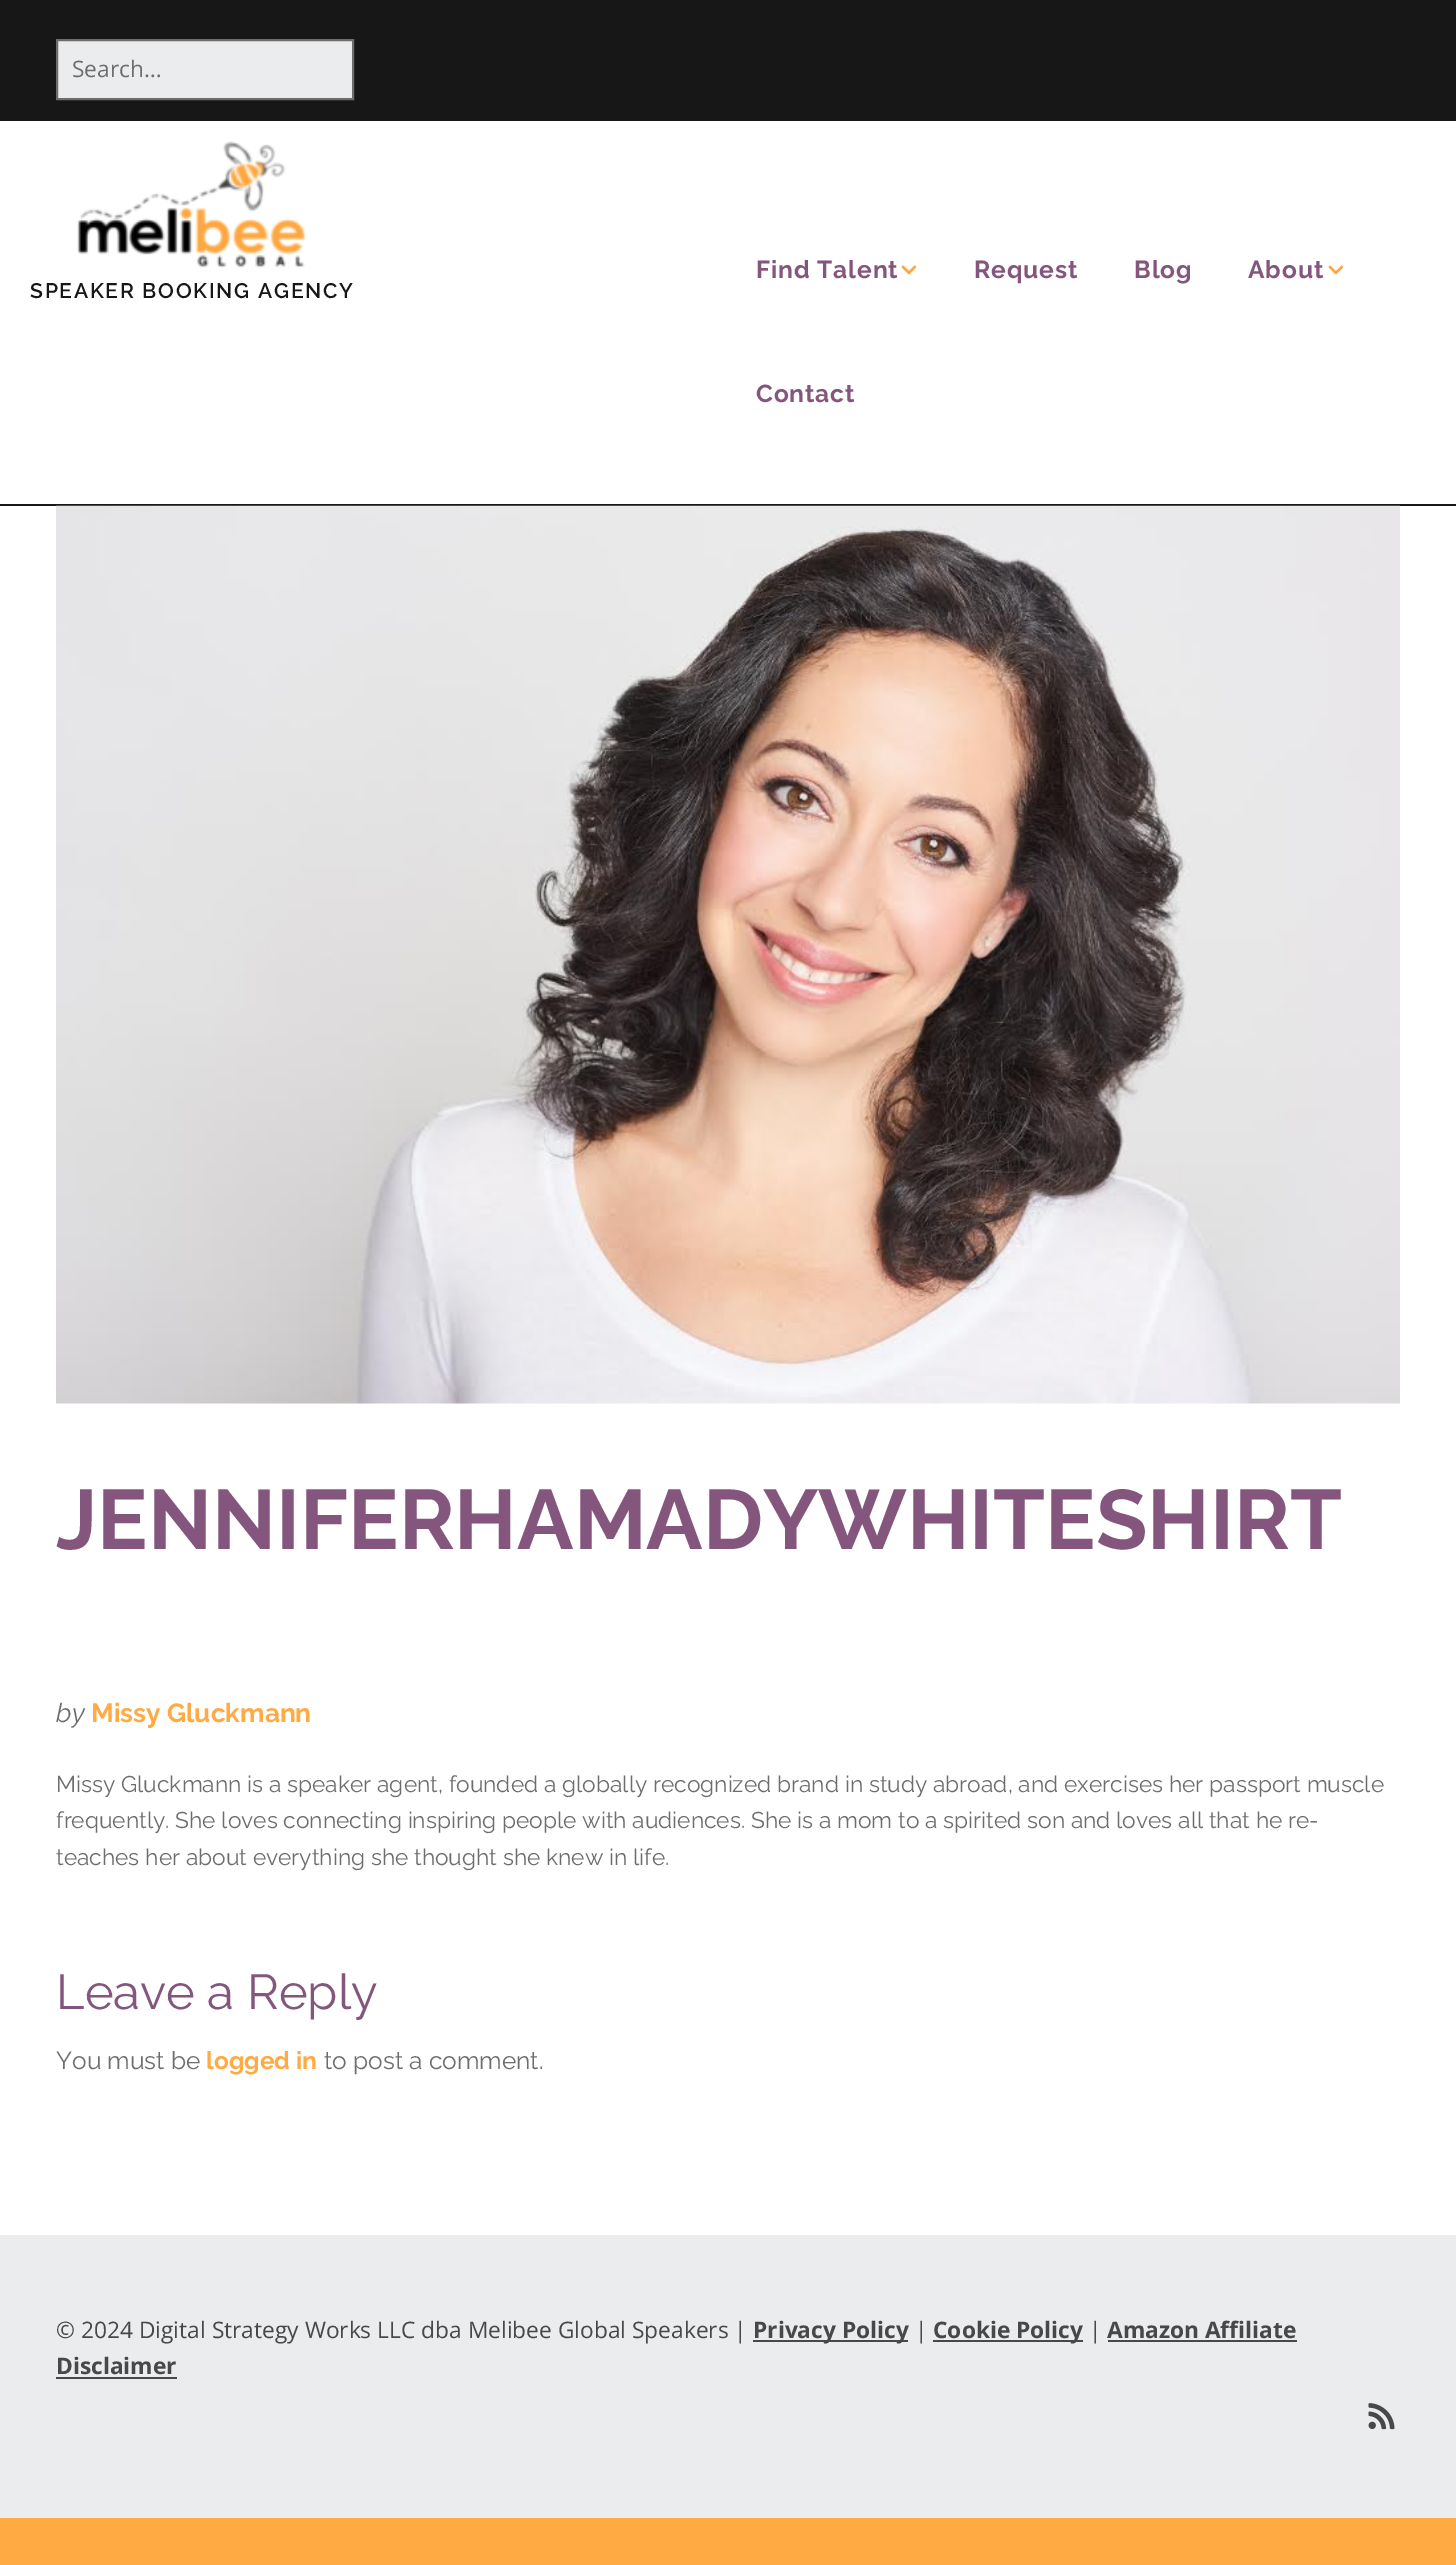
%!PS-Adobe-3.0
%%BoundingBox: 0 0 1456 2565
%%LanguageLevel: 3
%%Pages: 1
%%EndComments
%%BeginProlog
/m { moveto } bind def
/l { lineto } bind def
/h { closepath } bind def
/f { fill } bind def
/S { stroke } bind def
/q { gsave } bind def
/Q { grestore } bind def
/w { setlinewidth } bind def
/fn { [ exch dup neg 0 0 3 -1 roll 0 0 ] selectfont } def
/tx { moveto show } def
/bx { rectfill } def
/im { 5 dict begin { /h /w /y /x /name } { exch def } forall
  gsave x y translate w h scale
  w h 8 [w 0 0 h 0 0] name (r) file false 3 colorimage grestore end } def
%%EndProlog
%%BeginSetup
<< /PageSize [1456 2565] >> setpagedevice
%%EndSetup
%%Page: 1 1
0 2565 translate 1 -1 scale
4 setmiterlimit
1 0.667 0.263 setrgbcolor
0 0 1456 2565 bx
0.09 setgray
0 0 1456 121 bx
0.918 0.925 0.933 setrgbcolor
57 40 m 353 40 l 353 99 l 57 99 l h q f Q
0.427 setgray
2 w
S
/OpenSans-Regular 22.75 fn
(Search…) 72 77 tx
1 setgray
0 121 1456 383 bx
0.09 setgray
0 504 1456 2 bx
(image0.raw) 77 141 230 127 im
/Raleway-SemiBold 21 fn
30 298 m 1.75 0 (SPEAKER BOOKING AGENCY) ashow
/Raleway-Bold 24.5 fn
0.518 0.337 0.494 setrgbcolor
756 278 m 0.9 0 (Find Talent) ashow
(image1.raw) 901 265 16 10 im
974 278 m 0.9 0 (Request) ashow
1134 278 m 0.9 0 (Blog) ashow
1248 278 m 0.9 0 (About) ashow
(image1.raw) 1328 265 16 10 im
756 402 m 0.9 0 (Contact) ashow
1 setgray
0 506 1456 1729 bx
(image2.raw) 56 505 1344 899 im
/Raleway-Bold 84 fn
0.518 0.337 0.494 setrgbcolor
(JENNIFERHAMADYWHITESHIRT) 56 1549 tx
/Raleway-Italic 26.25 fn
0.427 setgray
(by) 56 1722 tx
/Raleway-Bold 26.25 fn
1 0.667 0.263 setrgbcolor
(Missy Gluckmann) 91 1722 tx
/Raleway-Regular 22.75 fn
0.427 setgray
(Missy Gluckmann is a speaker agent, founded a globally recognized brand in study abroad, and exercises her passport muscle) 56 1792 tx
(frequently. She loves connecting inspiring people with audiences. She is a mom to a spirited son and loves all that he re-) 56 1828 tx
(teaches her about everything she thought she knew in life.) 56 1865 tx
/Raleway-Regular 49 fn
0.518 0.337 0.494 setrgbcolor
(Leave a Reply) 56 2009 tx
/Raleway-Regular 24.5 fn
0.427 setgray
(You must be) 56 2069 tx
/Raleway-Bold 24.5 fn
1 0.667 0.263 setrgbcolor
(logged in) 206 2069 tx
/Raleway-Regular 24.5 fn
0.427 setgray
(to post a comment.) 324 2069 tx
0.918 0.925 0.933 setrgbcolor
0 2235 1456 283 bx
/OpenSans-Regular 22.75 fn
0.275 0.282 0.286 setrgbcolor
(© 2024 Digital Strategy Works LLC dba Melibee Global Speakers |) 56 2338 tx
753 2340 155 2 bx
/OpenSans-Bold 22.75 fn
(Privacy Policy) 753 2338 tx
/OpenSans-Regular 22.75 fn
(|) 915 2338 tx
933 2340 150 2 bx
/OpenSans-Bold 22.75 fn
(Cookie Policy) 933 2338 tx
/OpenSans-Regular 22.75 fn
(|) 1089 2338 tx
/OpenSans-Bold 22.75 fn
(Amazon Affiliate) 1107 2338 tx
1108 2340 189 2 bx
(Disclaimer) 56 2374 tx
56 2377 121 2 bx
(image3.raw) 1368 2403 27 27 im
showpage
%%EOF
